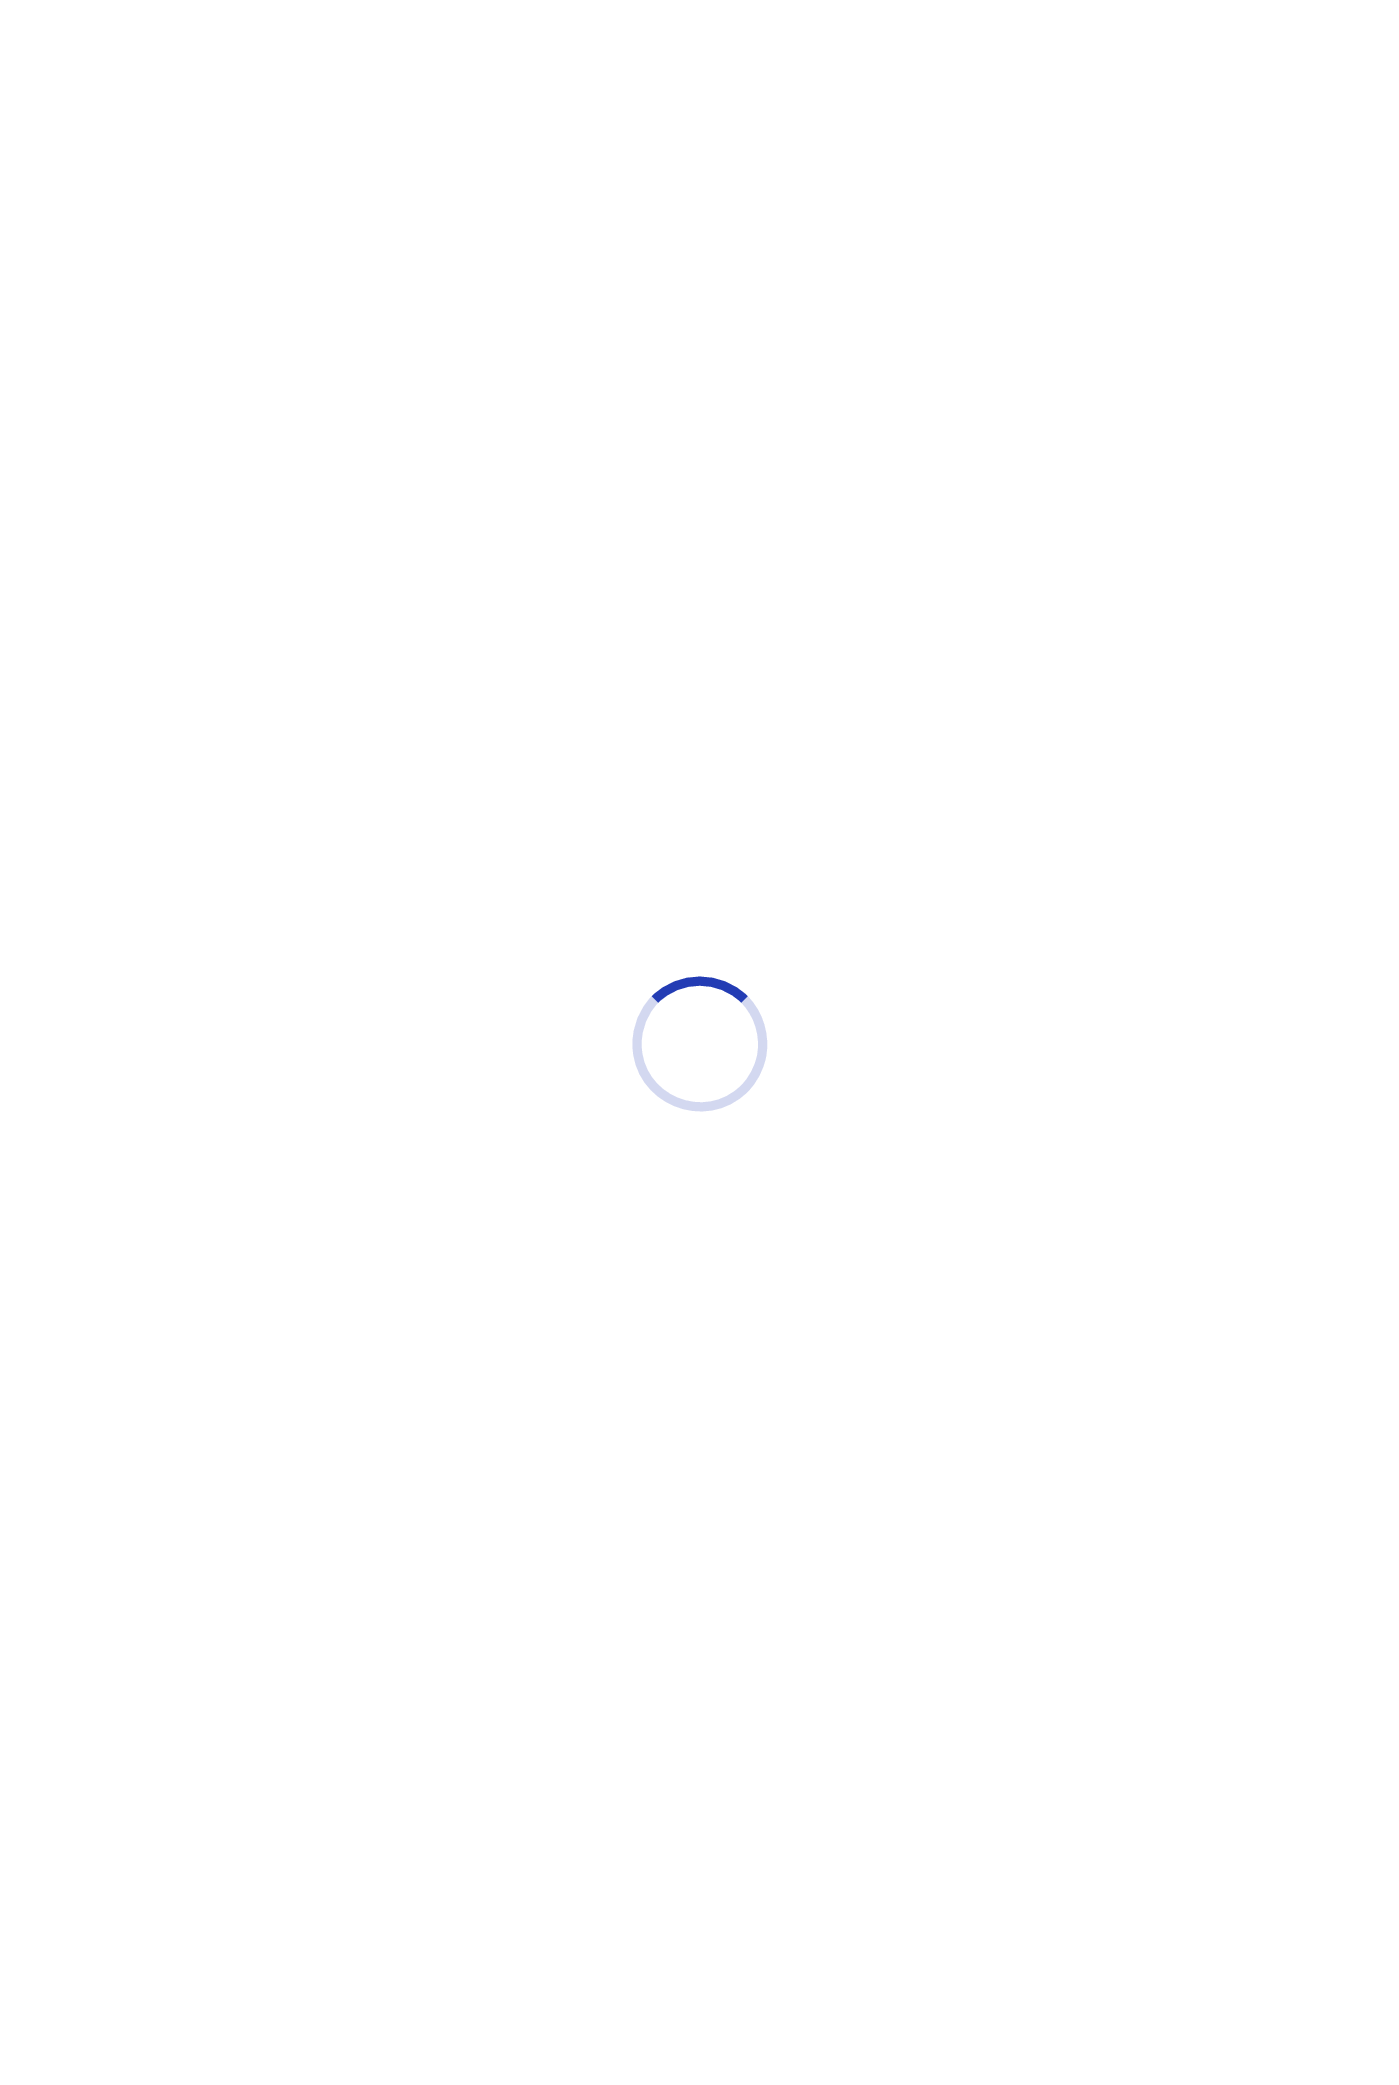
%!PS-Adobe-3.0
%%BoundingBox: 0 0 1399 2085
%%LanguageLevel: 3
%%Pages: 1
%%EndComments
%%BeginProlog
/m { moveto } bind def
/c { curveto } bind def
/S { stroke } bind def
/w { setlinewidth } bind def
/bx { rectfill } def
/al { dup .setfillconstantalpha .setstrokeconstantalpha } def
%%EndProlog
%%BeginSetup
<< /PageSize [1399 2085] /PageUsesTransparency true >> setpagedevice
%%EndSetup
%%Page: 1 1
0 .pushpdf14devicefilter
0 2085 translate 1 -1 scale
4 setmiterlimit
1 setgray
0 0 1399 2085 bx
0.137 0.235 0.706 setrgbcolor
9 w
655 999.5 m 679.5 975 720 975 744.5 999.5 c S
0.2 al
744.5 999.5 m 759 1014 765.5 1036 761.5 1056.5 c 759 1068.5 753 1080 744.5 1088.5 c 705 1128 637 1099.5 637 1044 c 637 1027.5 643.5 1011 655 999.5 c S
.poppdf14devicefilter showpage
%%EOF
